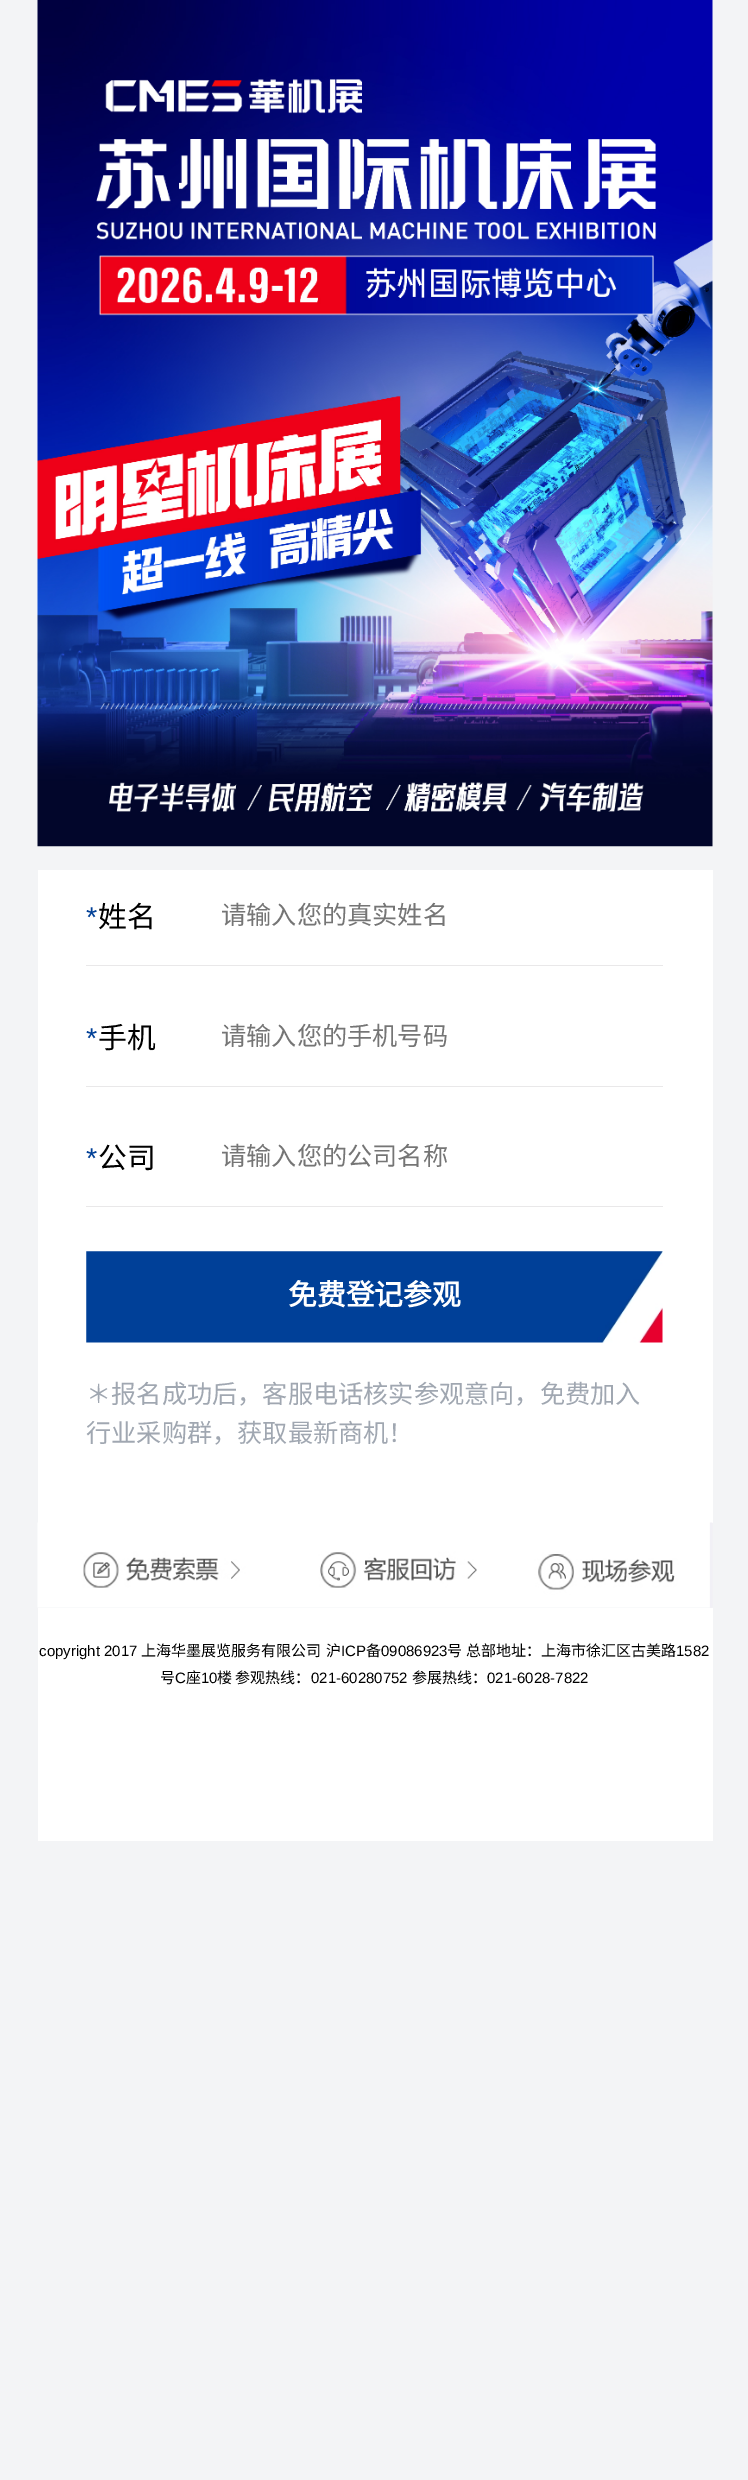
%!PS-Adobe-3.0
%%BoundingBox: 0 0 748 2480
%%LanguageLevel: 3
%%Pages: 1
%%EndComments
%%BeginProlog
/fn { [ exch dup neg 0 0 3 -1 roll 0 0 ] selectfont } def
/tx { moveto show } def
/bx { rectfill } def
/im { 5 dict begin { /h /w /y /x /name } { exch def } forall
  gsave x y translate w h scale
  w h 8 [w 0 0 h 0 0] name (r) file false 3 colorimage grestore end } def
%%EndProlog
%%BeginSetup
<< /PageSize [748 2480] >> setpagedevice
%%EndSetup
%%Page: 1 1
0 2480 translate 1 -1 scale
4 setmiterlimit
0.953 0.957 0.965 setrgbcolor
0 0 748 2480 bx
(image0.raw) 37 0 676 847 im
1 setgray
38 870 675 653 bx
0.914 0.91 0.914 setrgbcolor
86 965 577 1 bx
/LiberationSans-Regular 28.75 fn
0.004 0.251 0.592 setrgbcolor
(*) 86 927 tx
/NotoSansCJKSC-Regular 28.75 fn
0 setgray
(姓名) 98 927 tx
/NotoSansCJKSC-Regular 25.2 fn
0.459 setgray
(请输入您的真实姓名) 221 924 tx
0.914 0.91 0.914 setrgbcolor
86 1086 577 1 bx
/LiberationSans-Regular 28.75 fn
0.004 0.251 0.592 setrgbcolor
(*) 86 1048 tx
/NotoSansCJKSC-Regular 28.75 fn
0 setgray
(手机) 98 1048 tx
/NotoSansCJKSC-Regular 25.2 fn
0.459 setgray
(请输入您的手机号码) 221 1045 tx
0.914 0.91 0.914 setrgbcolor
86 1206 577 1 bx
/LiberationSans-Regular 28.75 fn
0.004 0.251 0.592 setrgbcolor
(*) 86 1168 tx
/NotoSansCJKSC-Regular 28.75 fn
0 setgray
(公司) 98 1168 tx
/NotoSansCJKSC-Regular 25.2 fn
0.459 setgray
(请输入您的公司名称) 221 1165 tx
(image1.raw) 86 1251 577 92 im
/NotoSansCJKSC-Bold 28.75 fn
1 setgray
(免费登记参观) 288 1305 tx
/NotoSansCJKSC-Regular 25.2 fn
0.627 0.655 0.694 setrgbcolor
(＊报名成功后，客服电话核实参观意向，免费加入) 86 1403 tx
(行业采购群，获取最新商机！) 86 1442 tx
(image2.raw) 37 1522 676 86 im
1 setgray
38 1608 675 233 bx
/LiberationSans-Regular 15 fn
0 setgray
(copyright 2017) 39 1656 tx
/NotoSansCJKSC-Regular 15 fn
(上海华墨展览服务有限公司) 141 1656 tx
(沪) 326 1656 tx
/LiberationSans-Regular 15 fn
(ICP) 341 1656 tx
/NotoSansCJKSC-Regular 15 fn
(备) 366 1656 tx
/LiberationSans-Regular 15 fn
(09086923) 381 1656 tx
/NotoSansCJKSC-Regular 15 fn
(号) 447 1656 tx
(总部地址：上海市徐汇区古美路) 466 1656 tx
/LiberationSans-Regular 15 fn
(1582) 676 1656 tx
/NotoSansCJKSC-Regular 15 fn
(号) 160 1683 tx
/LiberationSans-Regular 15 fn
(C) 175 1683 tx
/NotoSansCJKSC-Regular 15 fn
(座) 186 1683 tx
/LiberationSans-Regular 15 fn
(10) 201 1683 tx
/NotoSansCJKSC-Regular 15 fn
(楼 参观热线：) 217 1683 tx
/LiberationSans-Regular 15 fn
(021-60280752) 311 1683 tx
/NotoSansCJKSC-Regular 15 fn
(参展热线：) 412 1683 tx
/LiberationSans-Regular 15 fn
(021-6028-7822) 487 1683 tx
showpage
%%EOF
